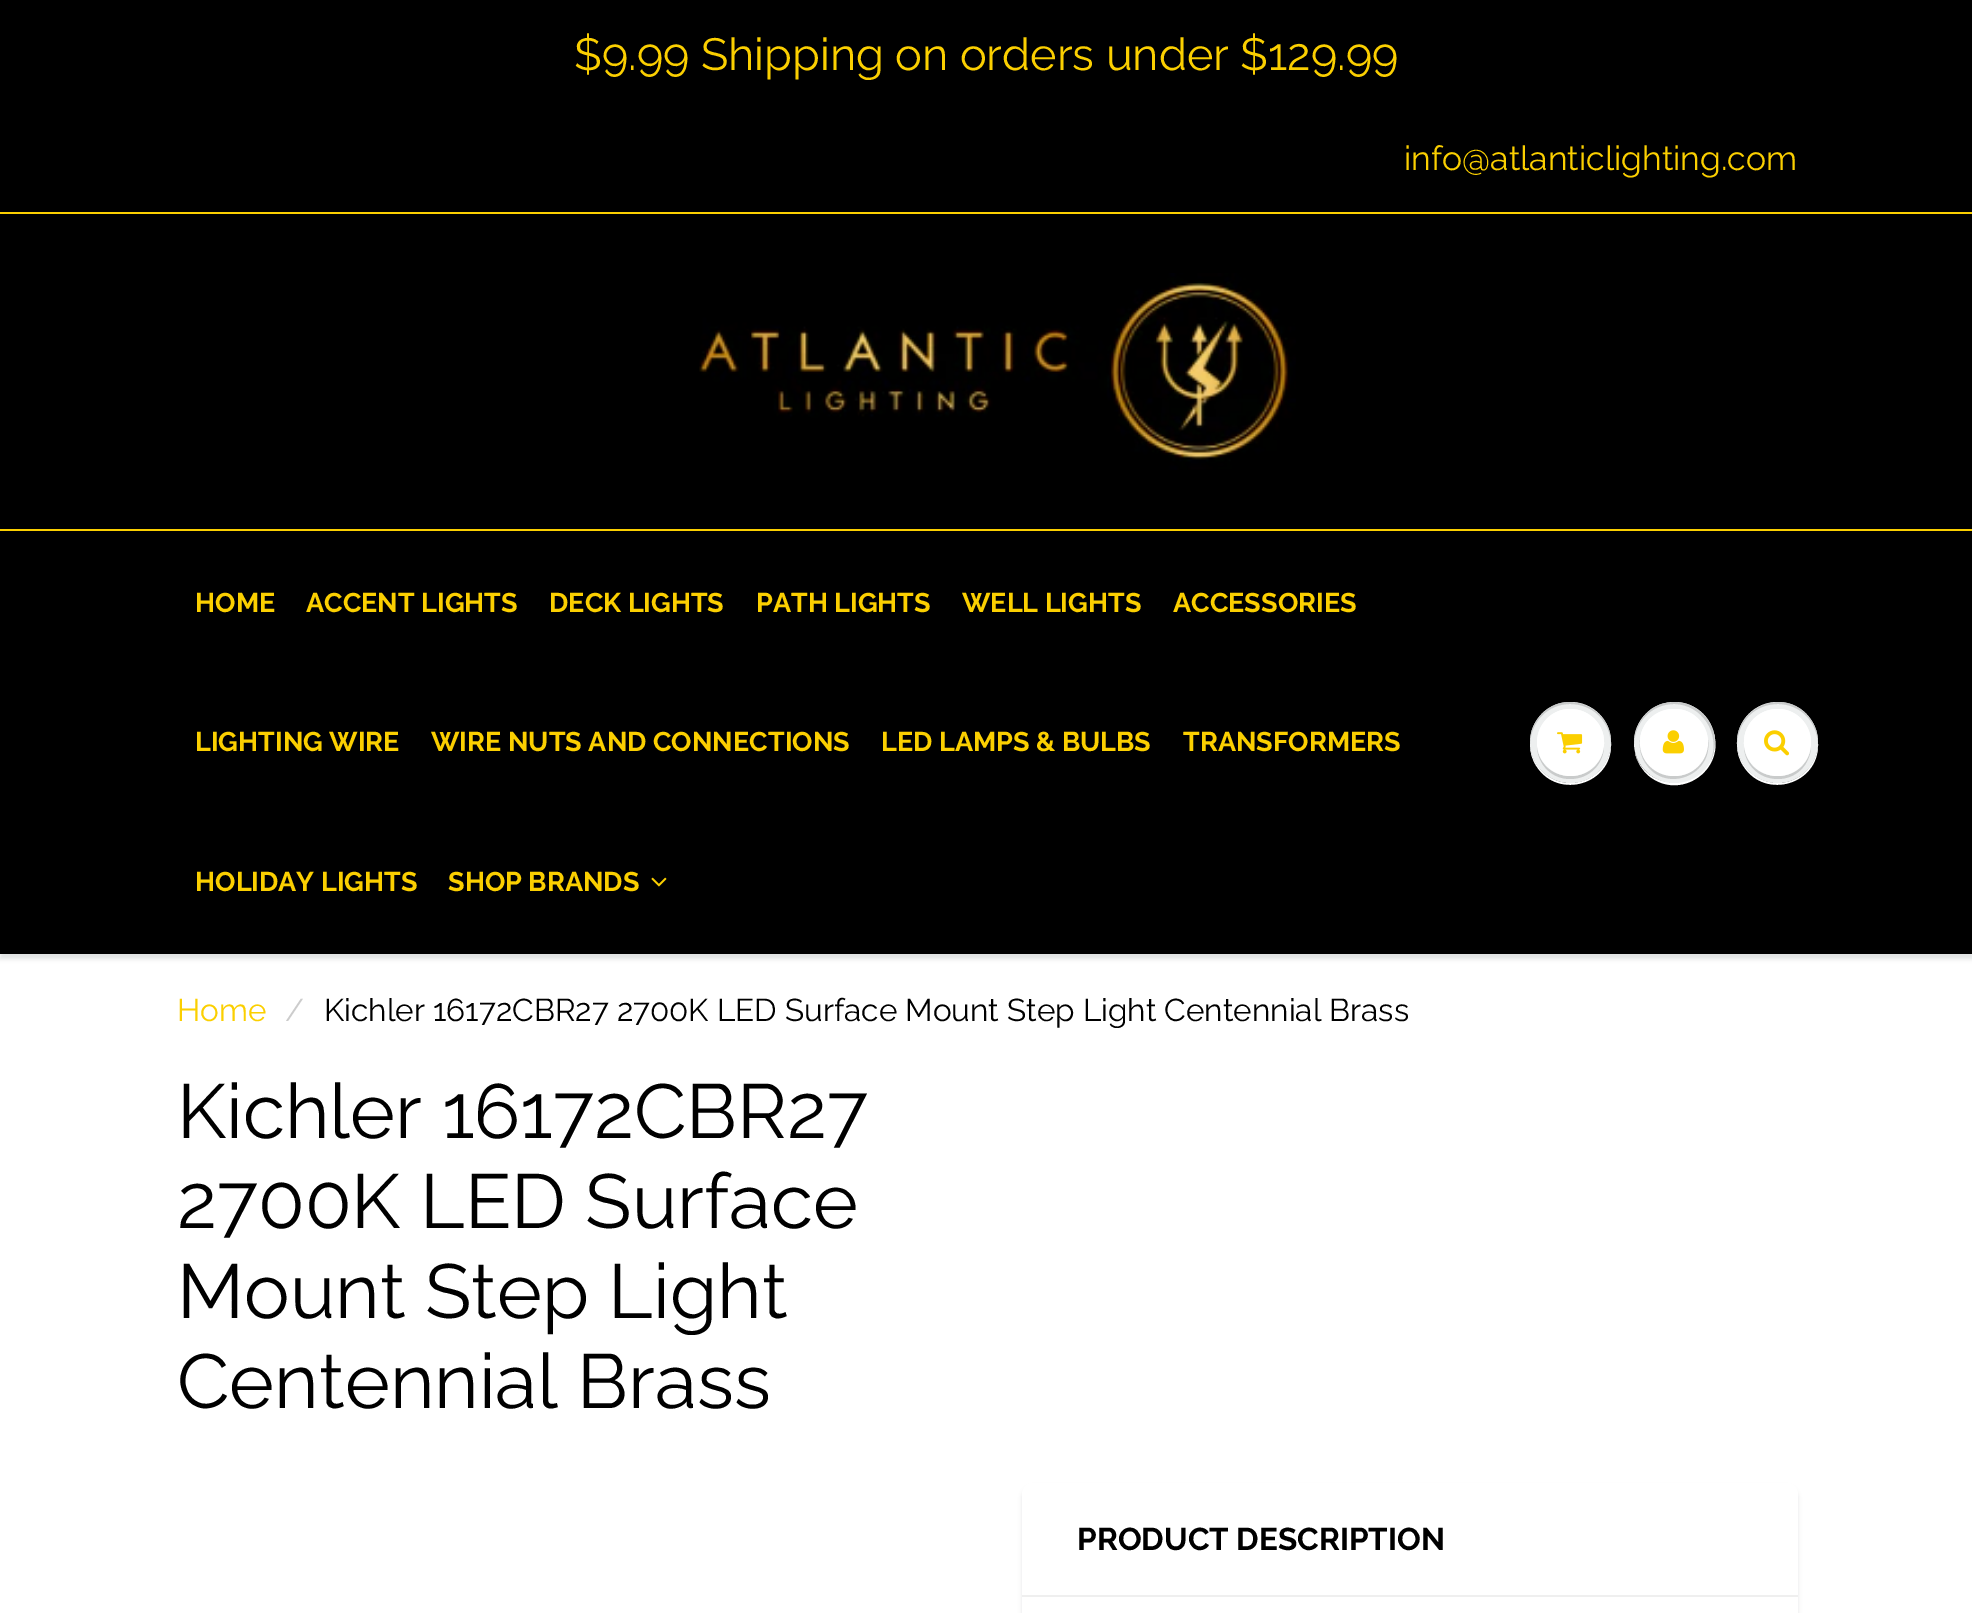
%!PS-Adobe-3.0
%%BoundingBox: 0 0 1972 1613
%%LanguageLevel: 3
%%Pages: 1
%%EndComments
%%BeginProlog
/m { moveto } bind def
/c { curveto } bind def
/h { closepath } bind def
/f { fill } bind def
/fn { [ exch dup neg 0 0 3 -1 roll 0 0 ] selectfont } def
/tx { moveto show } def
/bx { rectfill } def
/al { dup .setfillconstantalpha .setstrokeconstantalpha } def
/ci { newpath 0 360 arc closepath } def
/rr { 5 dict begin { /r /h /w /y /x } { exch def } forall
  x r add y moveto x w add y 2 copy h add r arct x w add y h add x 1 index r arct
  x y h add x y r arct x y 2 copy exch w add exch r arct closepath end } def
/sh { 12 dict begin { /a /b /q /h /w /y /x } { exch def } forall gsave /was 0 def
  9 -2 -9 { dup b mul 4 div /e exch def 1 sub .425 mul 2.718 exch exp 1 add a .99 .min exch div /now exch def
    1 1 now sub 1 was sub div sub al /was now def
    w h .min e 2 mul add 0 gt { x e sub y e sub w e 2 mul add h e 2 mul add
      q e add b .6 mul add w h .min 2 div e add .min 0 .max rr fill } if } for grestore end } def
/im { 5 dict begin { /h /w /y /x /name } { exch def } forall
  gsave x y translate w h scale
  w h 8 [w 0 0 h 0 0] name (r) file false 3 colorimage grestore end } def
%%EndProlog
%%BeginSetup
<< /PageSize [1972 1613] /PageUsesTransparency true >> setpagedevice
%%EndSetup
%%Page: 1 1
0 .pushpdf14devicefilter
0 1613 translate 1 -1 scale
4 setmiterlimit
1 setgray
0 0 1972 1613 bx
0 setgray
0 0 1972 212 bx
/Raleway-Regular 45 fn
0.984 0.812 0 setrgbcolor
($9.99 Shipping on orders under $129.99) 574 70 tx
/Raleway-Regular 33.75 fn
(info@atlanticlighting.com) 1404 170 tx
0 setgray
0 214 1972 315 bx
0.984 0.812 0 setrgbcolor
0 212 1972 2 bx
(image0.raw) 699 273 597 197 im
0.043 0.098 0.11 setrgbcolor
0 533 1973 426 0 2 0.12 sh
0 setgray
0 531 1972 423 bx
0.984 0.812 0 setrgbcolor
0 529 1972 2 bx
/Raleway-Bold 27 fn
(HOME) 195 612 tx
(ACCENT LIGHTS) 306 612 tx
(DECK LIGHTS) 549 612 tx
(PATH LIGHTS) 756 612 tx
(WELL LIGHTS) 962 612 tx
(ACCESSORIES) 1173 612 tx
(LIGHTING WIRE) 195 751 tx
(WIRE NUTS AND CONNECTIONS) 431 751 tx
(LED LAMPS & BULBS) 881 751 tx
(TRANSFORMERS) 1183 751 tx
(HOLIDAY LIGHTS) 195 891 tx
(SHOP BRANDS) 448 891 tx
(image1.raw) 651 877 16 10 im
1 setgray
1530 744 m 1530 752 1532 760 1537 767 c 1559 800 1612 784 1611 744 c 1610 765 1593 783 1570 783 c 1548 783 1531 765 1530 744 c h f
0.929 0.937 0.937 setrgbcolor
1570.5 742.5 40.5 ci f
0.788 0.796 0.796 setrgbcolor
1604 747 m 1599 786 1542 786 1537 747 c 1538 765 1552 779 1570 779 c 1589 779 1603 765 1604 747 c h f
1570 704 m 1593 704 1610 721 1611 744 c 1612 704 1559 686 1537 720 c 1532 727 1530 735 1530 744 c 1531 721 1548 704 1570 704 c h f
1 setgray
1570.5 742.5 33.5 ci f
1570 711 m 1589 711 1603 725 1604 744 c 1605 710 1561 696 1543 724 c 1539 730 1537 737 1537 744 c 1538 725 1552 711 1570 711 c h f
(image2.raw) 1557 732 26 22 im
1635 753 m 1637 762 1642 770 1649 776 c 1680 801 1724 771 1714 734 c 1715 742 1715 751 1711 758 c 1696 793 1645 790 1635 753 c h f
0.929 0.937 0.937 setrgbcolor
1674.5 742.5 40.5 ci f
0.788 0.796 0.796 setrgbcolor
1674 704 m 1702 704 1721 734 1711 760 c 1725 730 1699 696 1666 703 c 1659 704 1651 708 1646 714 c 1638 722 1634 733 1634 744 c 1635 721 1652 704 1674 704 c h f
1640 740 m 1639 749 1641 757 1646 764 c 1666 794 1713 775 1708 740 c 1708 748 1706 755 1702 761 c 1683 790 1638 774 1640 740 c h f
1 setgray
1640 709 68 67 33.5 rr f
1674 711 m 1693 711 1707 725 1708 744 c 1708 737 1706 730 1702 724 c 1684 696 1639 710 1640 744 c 1641 725 1655 711 1674 711 c h f
(image3.raw) 1662 730 22 24 im
1737 744 m 1737 752 1739 760 1744 767 c 1766 800 1819 784 1818 744 c 1817 765 1800 783 1778 783 c 1755 783 1738 765 1737 744 c h f
0.929 0.937 0.937 setrgbcolor
1777.5 742.5 40.5 ci f
0.788 0.796 0.796 setrgbcolor
1811 747 m 1806 786 1749 786 1744 747 c 1745 765 1759 779 1778 779 c 1796 779 1810 765 1811 747 c h f
1778 704 m 1800 704 1817 721 1818 744 c 1818 735 1816 727 1811 720 c 1789 686 1736 704 1737 744 c 1738 721 1755 704 1778 704 c h f
1 setgray
1777.5 742.5 33.5 ci f
1778 711 m 1796 711 1810 725 1811 744 c 1811 737 1809 730 1805 724 c 1787 696 1743 710 1744 744 c 1745 725 1759 711 1778 711 c h f
(image4.raw) 1764 730 26 26 im
/Raleway-Regular 31.5 fn
0.984 0.812 0 setrgbcolor
(Home) 177 1021 tx
0.8 setgray
(/) 285 1021 tx
0 setgray
(Kichler 16172CBR27 2700K LED Surface Mount Step Light Centennial Brass) 324 1021 tx
/Raleway-Regular 76.5 fn
(Kichler 16172CBR27) 177 1138 tx
(2700K LED Surface) 177 1228 tx
(Mount Step Light) 177 1318 tx
(Centennial Brass) 177 1408 tx
0.043 0.098 0.11 setrgbcolor
1022 1487 776 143 11 2 0.1 sh
1 setgray
1022 1483 776 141 11 rr f
0.937 setgray
1022 1595 776 2 bx
/Raleway-Bold 31.5 fn
0 setgray
(PRODUCT DESCRIPTION) 1077 1550 tx
.poppdf14devicefilter showpage
%%EOF
